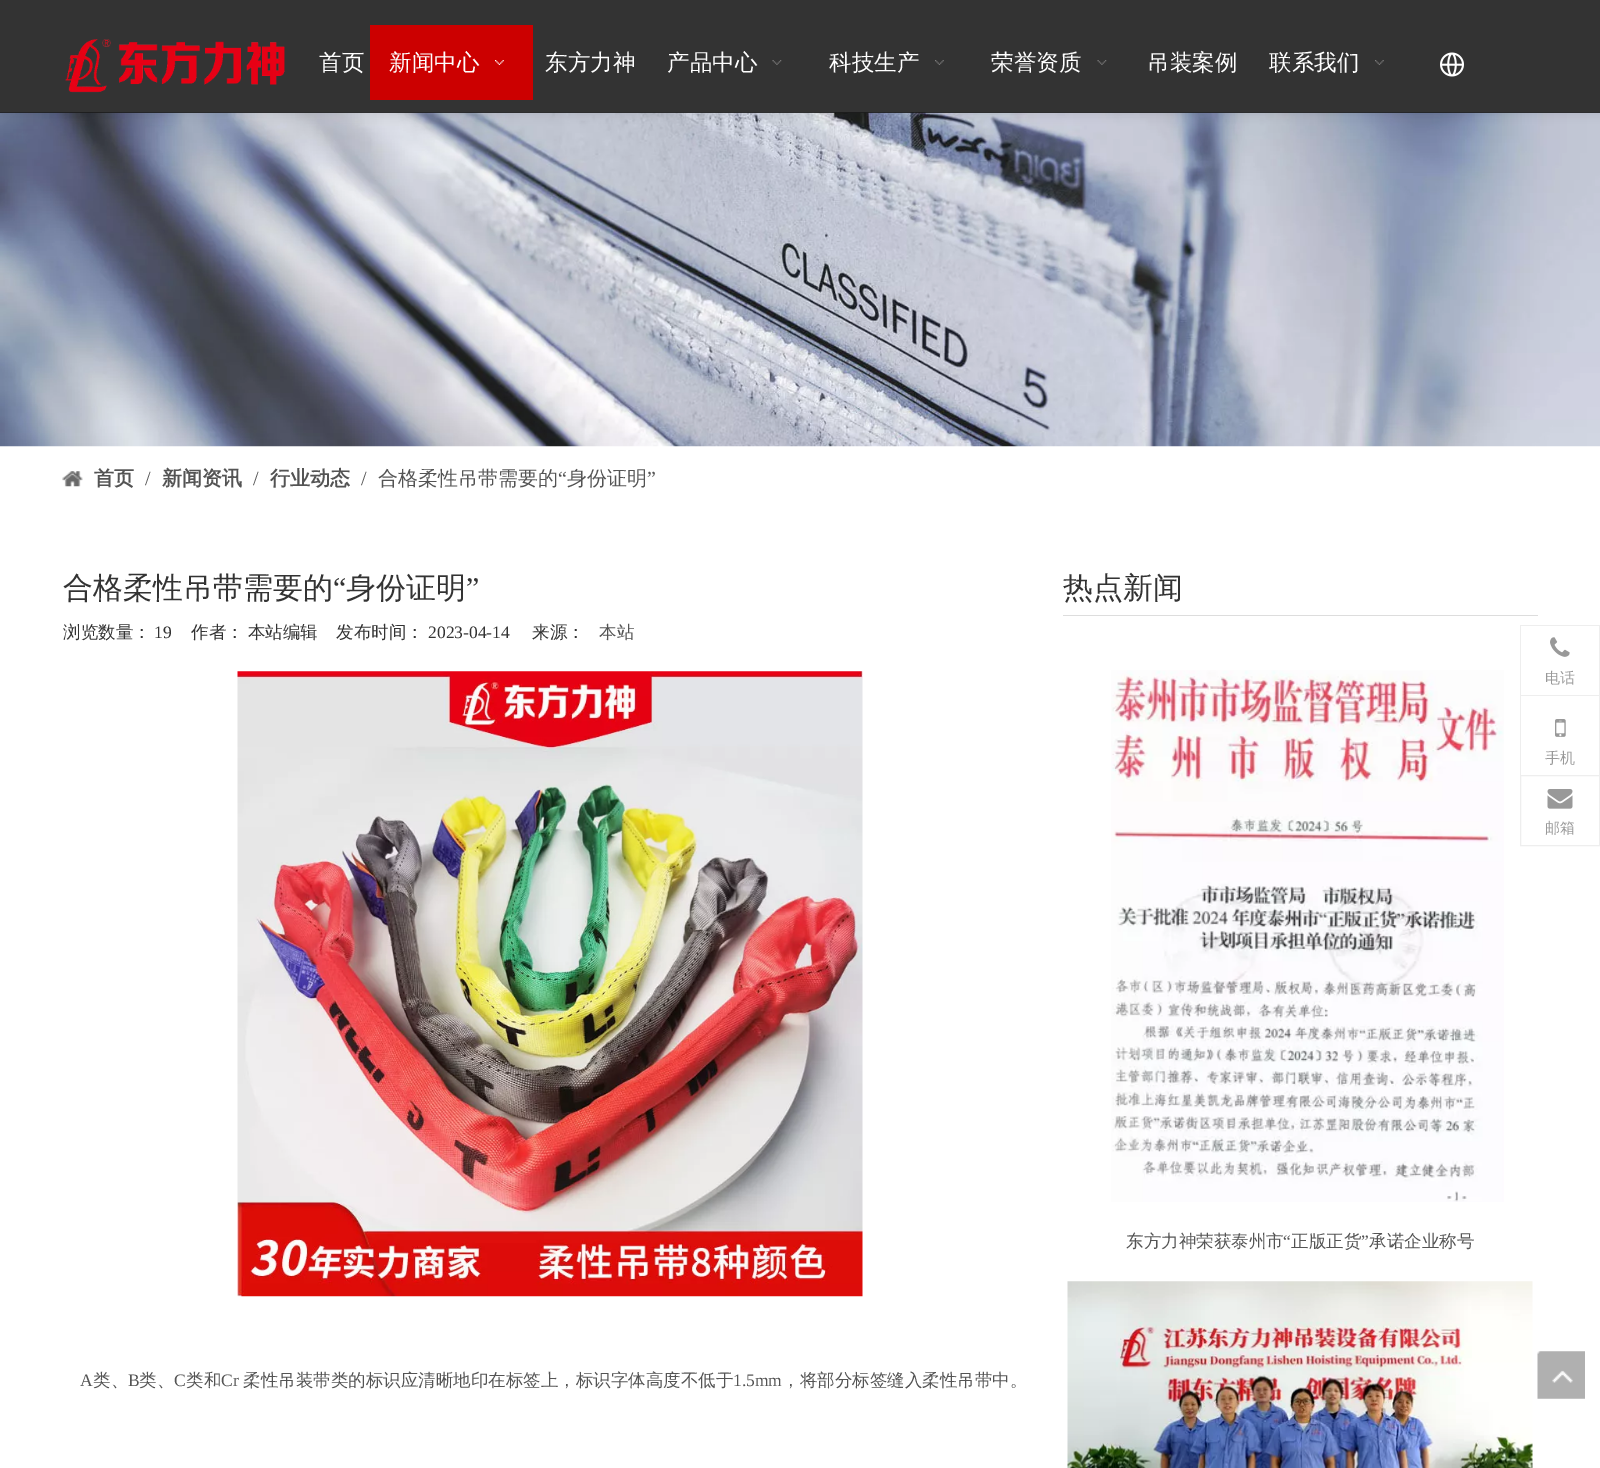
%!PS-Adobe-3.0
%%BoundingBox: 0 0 1600 1468
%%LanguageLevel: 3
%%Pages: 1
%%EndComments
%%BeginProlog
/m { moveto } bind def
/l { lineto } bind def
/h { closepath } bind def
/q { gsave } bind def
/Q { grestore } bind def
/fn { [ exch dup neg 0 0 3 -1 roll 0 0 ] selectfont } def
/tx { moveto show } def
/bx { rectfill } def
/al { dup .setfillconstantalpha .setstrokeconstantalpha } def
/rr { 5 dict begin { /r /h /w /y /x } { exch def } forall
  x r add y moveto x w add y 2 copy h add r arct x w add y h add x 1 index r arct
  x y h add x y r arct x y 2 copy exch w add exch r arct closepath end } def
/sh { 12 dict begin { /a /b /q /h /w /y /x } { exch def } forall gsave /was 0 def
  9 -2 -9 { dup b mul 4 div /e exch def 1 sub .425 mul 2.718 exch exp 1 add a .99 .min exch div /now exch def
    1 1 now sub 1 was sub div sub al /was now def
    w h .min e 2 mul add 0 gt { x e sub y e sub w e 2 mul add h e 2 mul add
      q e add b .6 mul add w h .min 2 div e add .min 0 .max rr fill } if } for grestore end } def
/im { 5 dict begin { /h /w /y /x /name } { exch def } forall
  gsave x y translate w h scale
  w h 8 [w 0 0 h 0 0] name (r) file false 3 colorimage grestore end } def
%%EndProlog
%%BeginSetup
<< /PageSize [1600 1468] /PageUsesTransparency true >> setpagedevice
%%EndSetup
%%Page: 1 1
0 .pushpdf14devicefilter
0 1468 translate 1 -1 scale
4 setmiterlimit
1 setgray
0 0 1600 1468 bx
(image6.raw) 0 112 1600 335 im
q
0 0 m 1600 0 l 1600 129 l 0 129 l h 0 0 m 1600 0 l 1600 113 l 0 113 l h eoclip newpath
0 setgray
1 1 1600 113 0 4.5 0.08 sh
Q
0.8 al
0 setgray
0 0 1600 113 bx
1 al
(image0.raw) 65 39 220 54 im
/WenQuanYiZenHei-Medium 22.5 fn
1 setgray
(首页) 319 70 tx
0.8 0 0 setrgbcolor
370 25 163 75 bx
1 setgray
(新闻中心) 389 70 tx
(image1.raw) 495 60 9 5 im
(东方力神) 545 70 tx
(产品中心) 667 70 tx
(image2.raw) 772 60 10 5 im
(科技生产) 829 70 tx
(image3.raw) 935 60 9 5 im
(荣誉资质) 991 70 tx
(image2.raw) 1097 60 10 5 im
(吊装案例) 1147 70 tx
(联系我们) 1269 70 tx
(image4.raw) 1375 60 9 5 im
(image5.raw) 1440 52 24 25 im
(image7.raw) 62 471 21 16 im
/WenQuanYiZenHei-Bold 20 fn
0.329 setgray
(首页) 94 485 tx
/LiberationSerif-Regular 20 fn
(/) 145 485 tx
/WenQuanYiZenHei-Bold 20 fn
(新闻资讯) 162 485 tx
/LiberationSerif-Regular 20 fn
(/) 253 485 tx
/WenQuanYiZenHei-Bold 20 fn
(行业动态) 270 485 tx
/LiberationSerif-Regular 20 fn
(/) 361 485 tx
/WenQuanYiZenHei-Medium 20 fn
(合格柔性吊带需要的) 378 485 tx
/LiberationSerif-Regular 20 fn
(“) 558 485 tx
/WenQuanYiZenHei-Medium 20 fn
(身份证明) 567 485 tx
/LiberationSerif-Regular 20 fn
(”) 647 485 tx
/WenQuanYiZenHei-Medium 30 fn
0.2 setgray
(合格柔性吊带需要的) 63 598 tx
/LiberationSerif-Regular 30 fn
(“) 333 598 tx
/WenQuanYiZenHei-Medium 30 fn
(身份证明) 346 598 tx
/LiberationSerif-Regular 30 fn
(”) 466 598 tx
/WenQuanYiZenHei-Medium 17.5 fn
(浏览数量：) 63 638 tx
/LiberationSerif-Regular 17.5 fn
(19) 154 638 tx
/WenQuanYiZenHei-Medium 17.5 fn
191 638 m -1 0 32 (作者： 本站编辑) widthshow
(发布时间：) 336 638 tx
/LiberationSerif-Regular 17.5 fn
(2023-04-14) 428 638 tx
/WenQuanYiZenHei-Medium 17.5 fn
(来源：) 532 638 tx
0.329 setgray
(本站) 599 638 tx
(image8.raw) 237 671 626 626 im
/LiberationSerif-Regular 17.5 fn
(A) 80 1386 tx
/WenQuanYiZenHei-Medium 17.5 fn
(类、) 93 1386 tx
/LiberationSerif-Regular 17.5 fn
(B) 128 1386 tx
/WenQuanYiZenHei-Medium 17.5 fn
(类、) 139 1386 tx
/LiberationSerif-Regular 17.5 fn
(C) 174 1386 tx
/WenQuanYiZenHei-Medium 17.5 fn
(类和) 186 1386 tx
/LiberationSerif-Regular 17.5 fn
(Cr) 221 1386 tx
/WenQuanYiZenHei-Medium 17.5 fn
(柔性吊装带类的标识应清晰地印在标签上，标识字体高度不低于) 243 1386 tx
/LiberationSerif-Regular 17.5 fn
(1.5mm) 733 1386 tx
/WenQuanYiZenHei-Medium 17.5 fn
(，将部分标签缝入柔性吊带中。) 782 1386 tx
0.867 setgray
1063 615 475 1 bx
/WenQuanYiZenHei-Medium 30 fn
0.2 setgray
(热点新闻) 1063 598 tx
(image9.raw) 1111 670 393 532 im
/WenQuanYiZenHei-Medium 17.5 fn
0.329 setgray
(东方力神荣获泰州市) 1126 1247 tx
/LiberationSerif-Regular 17.5 fn
(“) 1283 1247 tx
/WenQuanYiZenHei-Medium 17.5 fn
(正版正货) 1291 1247 tx
/LiberationSerif-Regular 17.5 fn
(”) 1361 1247 tx
/WenQuanYiZenHei-Medium 17.5 fn
(承诺企业称号) 1369 1247 tx
(image10.raw) 1067 1281 466 187 im
0.933 setgray
1520 625 80 1 bx
1599 625 1 70 bx
1520 625 1 70 bx
(image11.raw) 1550 637 20 20 im
/WenQuanYiZenHei-Medium 15 fn
0.6 setgray
(电话) 1545 683 tx
0.933 setgray
1520 695 80 1 bx
1599 695 1 80 bx
1520 695 1 80 bx
(image12.raw) 1555 719 11 18 im
0.6 setgray
(手机) 1545 763 tx
0.933 setgray
1520.5 775.5 79 70 rectstroke
(image13.raw) 1547 789 26 20 im
0.6 setgray
(邮箱) 1545 833 tx
(image14.raw) 1537 1351 48 48 im
.poppdf14devicefilter showpage
%%EOF
